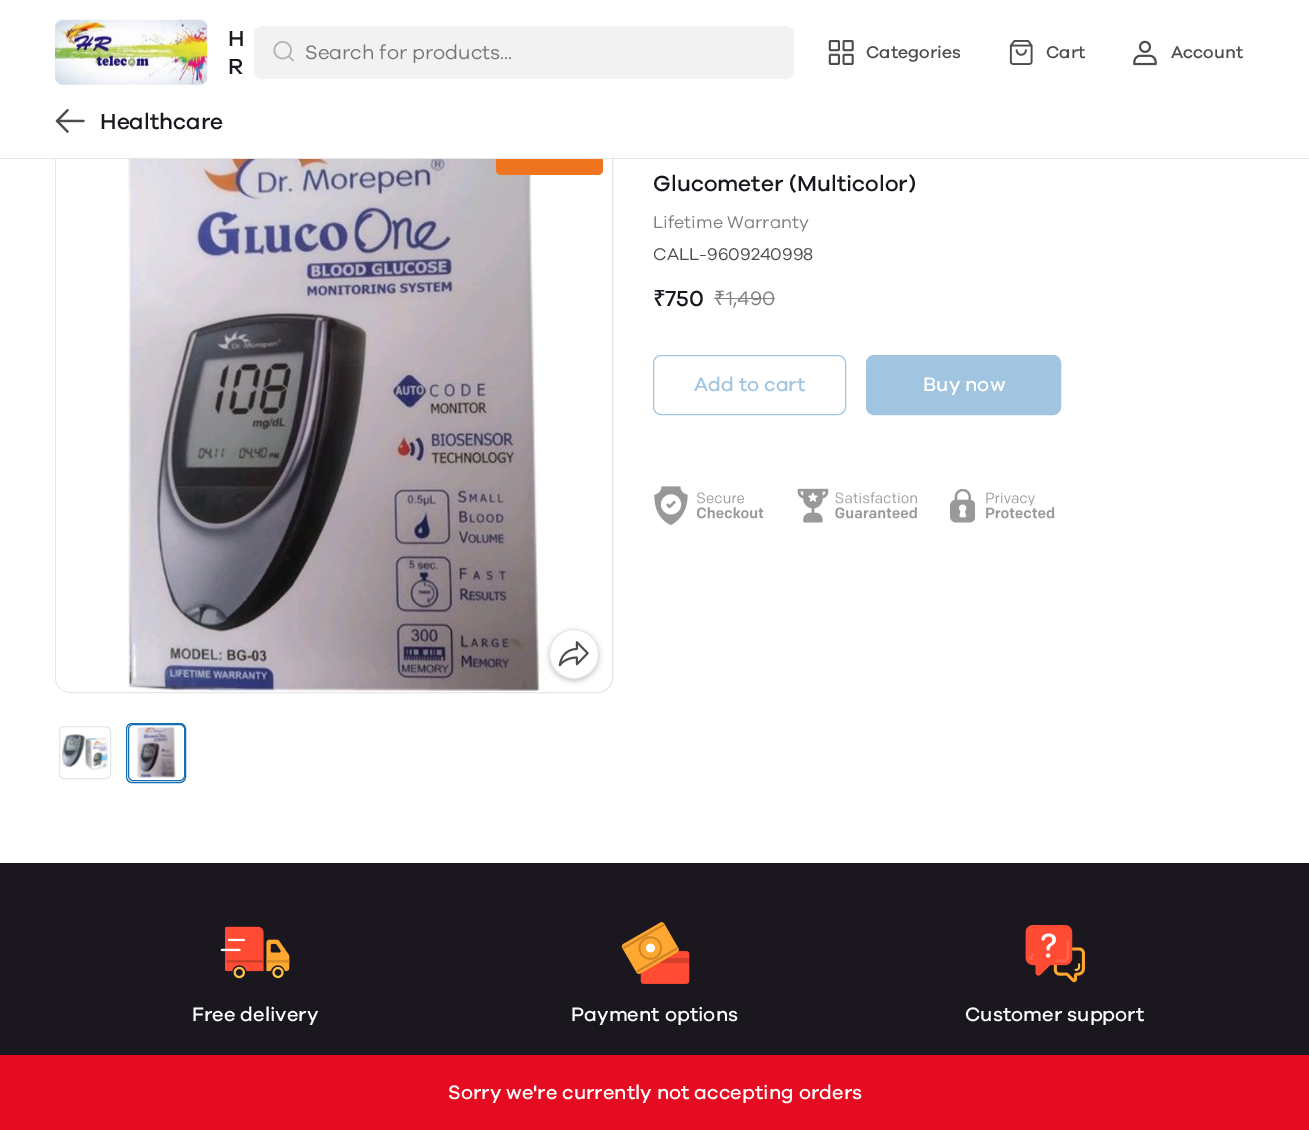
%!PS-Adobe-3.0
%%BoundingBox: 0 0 1309 1130
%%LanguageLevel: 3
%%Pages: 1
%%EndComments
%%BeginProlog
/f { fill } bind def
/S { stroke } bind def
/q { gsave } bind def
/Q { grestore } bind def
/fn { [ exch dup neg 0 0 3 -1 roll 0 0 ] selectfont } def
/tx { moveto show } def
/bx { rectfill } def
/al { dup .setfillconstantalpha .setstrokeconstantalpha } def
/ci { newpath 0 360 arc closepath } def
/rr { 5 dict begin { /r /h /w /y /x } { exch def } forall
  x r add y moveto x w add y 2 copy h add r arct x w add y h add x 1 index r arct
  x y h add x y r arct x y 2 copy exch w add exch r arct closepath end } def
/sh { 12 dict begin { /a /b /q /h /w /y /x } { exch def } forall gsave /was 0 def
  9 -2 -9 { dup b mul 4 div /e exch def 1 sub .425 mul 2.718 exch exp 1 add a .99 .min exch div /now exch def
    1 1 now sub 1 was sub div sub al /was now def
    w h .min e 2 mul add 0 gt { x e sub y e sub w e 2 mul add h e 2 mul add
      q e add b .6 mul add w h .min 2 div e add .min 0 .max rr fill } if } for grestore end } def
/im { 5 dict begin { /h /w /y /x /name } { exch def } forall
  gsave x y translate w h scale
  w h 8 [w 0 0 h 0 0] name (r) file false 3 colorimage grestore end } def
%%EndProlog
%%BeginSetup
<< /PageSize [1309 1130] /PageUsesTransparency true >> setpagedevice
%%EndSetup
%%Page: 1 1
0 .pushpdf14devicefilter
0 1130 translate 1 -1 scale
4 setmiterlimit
1 setgray
0 0 1309 1130 bx
0.902 setgray
55.5 135.5 557 557 14.5 rr S
(image6.raw) 56 159 546 532 im
0.933 0.455 0.122 setrgbcolor
496 145 107 30 5 rr f
1 setgray
55 135 558 23 bx
0.902 setgray
0 158 1309 1 bx
(image0.raw) 55 19 153 66 im
/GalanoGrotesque-Medium 22.5 fn
0.102 0.094 0.118 setrgbcolor
(H) 228 46 tx
(R) 228 74 tx
0.949 setgray
254 26 540 53 8 rr f
(image1.raw) 273 41 21 21 im
/GalanoGrotesque-Regular 20 fn
0.459 setgray
(Search for products...) 305 59 tx
(image2.raw) 828 40 26 25 im
/GalanoGrotesque-Medium 17.5 fn
0.302 setgray
(Categories) 866 58 tx
(image3.raw) 1009 40 24 25 im
(Cart) 1046 58 tx
(image4.raw) 1133 40 24 26 im
(Account) 1171 58 tx
(image5.raw) 55 109 30 24 im
/GalanoGrotesque-Medium 22.5 fn
0.102 0.094 0.118 setrgbcolor
(Healthcare) 100 129 tx
549 631 50 50 25 2.5 0.24 sh
1 setgray
574 654 24.5 ci q f Q
0.902 setgray
S
(image7.raw) 558 641 31 26 im
59.5 726.5 51 52 4.5 rr S
(image8.raw) 62 734 46 37 im
0.078 0.431 0.706 setrgbcolor
126.5 723.5 59 59 5.5 rr S
128.5 724.5 56 56 4.5 rr S
(image9.raw) 137 727 39 51 im
0.102 0.094 0.118 setrgbcolor
(Glucometer \(Multicolor\)) 653 191 tx
/GalanoGrotesque-Regular 17.5 fn
0.502 setgray
(Lifetime Warranty) 653 228 tx
0.302 setgray
(CALL-9609240998) 653 260 tx
/NotoSans-Medium 22.5 fn
0.102 0.094 0.118 setrgbcolor
(₹) 653 306 tx
/GalanoGrotesque-Medium 22.5 fn
(750) 665 306 tx
/NotoSans-Regular 20 fn
0.502 setgray
(₹) 714 305 tx
714 298 61 1 bx
/GalanoGrotesque-Regular 20 fn
(1,490) 726 305 tx
0.631 0.773 0.882 setrgbcolor
653.5 355.5 192 59 7.5 rr S
/GalanoGrotesque-Medium 20 fn
(Add to cart) 694 391 tx
866.5 355.5 194 59 7.5 rr q f Q
S
1 setgray
(Buy now) 923 391 tx
(image10.raw) 654 486 110 39 im
(image11.raw) 797 488 120 35 im
(image12.raw) 950 489 105 34 im
0.102 0.094 0.118 setrgbcolor
0 863 1309 192 bx
(image13.raw) 220 926 70 53 im
1 setgray
(Free delivery) 192 1021 tx
(image14.raw) 621 922 69 62 im
(Payment options) 571 1021 tx
(image15.raw) 1025 925 60 58 im
(Customer support) 965 1021 tx
0.898 0.043 0.125 setrgbcolor
0 1055 1309 75 bx
1 setgray
(Sorry we're currently not accepting orders) 448 1099 tx
.poppdf14devicefilter showpage
%%EOF
